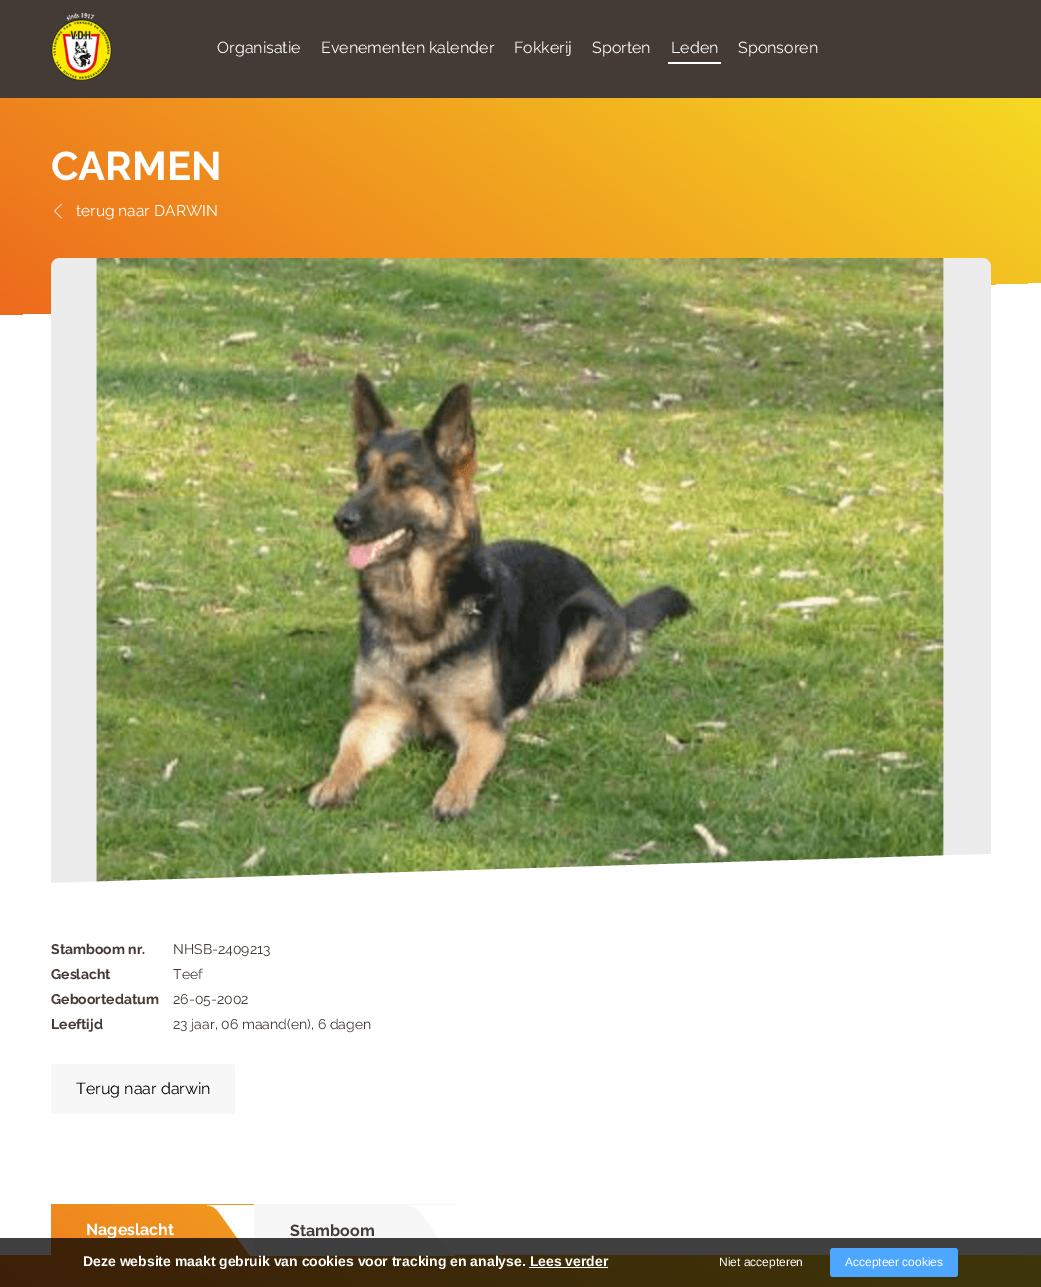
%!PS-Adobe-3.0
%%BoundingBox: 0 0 1041 1287
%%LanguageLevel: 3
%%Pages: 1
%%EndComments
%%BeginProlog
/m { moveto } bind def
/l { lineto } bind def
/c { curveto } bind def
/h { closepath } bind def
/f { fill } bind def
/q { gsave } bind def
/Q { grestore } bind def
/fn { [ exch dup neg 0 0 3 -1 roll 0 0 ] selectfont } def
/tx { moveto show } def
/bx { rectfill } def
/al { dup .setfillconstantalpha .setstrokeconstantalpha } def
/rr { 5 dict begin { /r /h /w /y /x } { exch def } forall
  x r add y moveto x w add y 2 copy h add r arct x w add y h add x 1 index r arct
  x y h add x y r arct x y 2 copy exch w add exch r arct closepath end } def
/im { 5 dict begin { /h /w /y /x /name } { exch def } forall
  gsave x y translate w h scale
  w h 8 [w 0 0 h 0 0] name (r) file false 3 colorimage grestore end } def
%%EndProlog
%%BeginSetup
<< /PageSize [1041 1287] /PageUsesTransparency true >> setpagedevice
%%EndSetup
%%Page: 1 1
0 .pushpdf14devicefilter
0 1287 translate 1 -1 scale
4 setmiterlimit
1 setgray
0 0 1041 1287 bx
q -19 10 m 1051 -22 l 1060 282 l -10 315 l h clip newpath
<< /ShadingType 2 /ColorSpace /DeviceRGB /Coords [264 509 777 -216] /Extend [true true] /Function << /FunctionType 2 /Domain [0 1] /C0 [0.929 0.412 0.11] /C1 [0.965 0.91 0.141] /N 1 >> >> shfill Q
0.267 0.227 0.212 setrgbcolor
0 0 1041 98 bx
(image0.raw) 51 12 61 69 im
/Raleway-Regular 16 fn
1 setgray
(Organisatie) 217 53 tx
(Evenementen kalender) 321 53 tx
(Fokkerij) 514 53 tx
(Sporten) 592 53 tx
(Leden) 671 53 tx
668 62 53 2 bx
(Sponsoren) 738 53 tx
/Raleway-Bold 40 fn
(CARMEN) 51 180 tx
(image1.raw) 54 203 8 16 im
/Raleway-Regular 15.5 fn
(terug naar) 76 216 tx
(DARWIN) 154 216 tx
0.925 setgray
51 258 940 636 9 rr f
(image2.raw) 96 258 848 624 im
1 setgray
991 854 m 991 885 l 991 890 987 894 982 894 c 60 894 l 55 894 51 890 51 885 c 51 883 l h f
/Raleway-Bold 14 fn
0.267 0.227 0.212 setrgbcolor
(Stamboom nr.) 51 954 tx
/Raleway-Regular 14 fn
(NHSB-2409213) 173 954 tx
/Raleway-Bold 14 fn
(Geslacht) 51 979 tx
/Raleway-Regular 14 fn
(Teef) 173 979 tx
/Raleway-Bold 14 fn
(Geboortedatum) 51 1004 tx
/Raleway-Regular 14 fn
(26-05-2002) 173 1004 tx
/Raleway-Bold 14 fn
(Leeftijd) 51 1029 tx
/Raleway-Regular 14 fn
(23 jaar, 06 maand\(en\), 6 dagen) 173 1029 tx
0.969 setgray
51 1064 184 50 3 rr f
/Raleway-Regular 16 fn
0 setgray
(Terug naar darwin) 76 1094 tx
q
0 1204 1041 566 rectclip
q -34 1171 m 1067 1138 l 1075 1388 l -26 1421 l h clip newpath
<< /ShadingType 2 /ColorSpace /DeviceRGB /Coords [272 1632 769 927] /Extend [true true] /Function << /FunctionType 2 /Domain [0 1] /C0 [0.929 0.412 0.11] /C1 [0.965 0.91 0.141] /N 1 >> >> shfill Q
Q
1 setgray
0 1204 51 51 bx
(image3.raw) 207 1205 47 51 im
/Raleway-Bold 16 fn
(Nageslacht) 86 1235 tx
0.969 setgray
254 1204 201 52 bx
(image4.raw) 408 1205 47 51 im
0.267 0.227 0.212 setrgbcolor
(Stamboom) 290 1236 tx
1 setgray
455 1204 586 51 bx
0.75 al
0 setgray
0 1238 1041 49 bx
/LiberationSans-Bold 14 fn
1 al
1 setgray
(Deze website maakt gebruik van cookies voor tracking en analyse. Lees verder) 83 1266 tx
529 1267 79 1 bx
/LiberationSans-Regular 12 fn
(Niet accepteren) 719 1266 tx
0.302 0.651 1 setrgbcolor
830 1248 128 29 3 rr f
1 setgray
(Accepteer cookies) 845 1266 tx
.poppdf14devicefilter showpage
%%EOF
